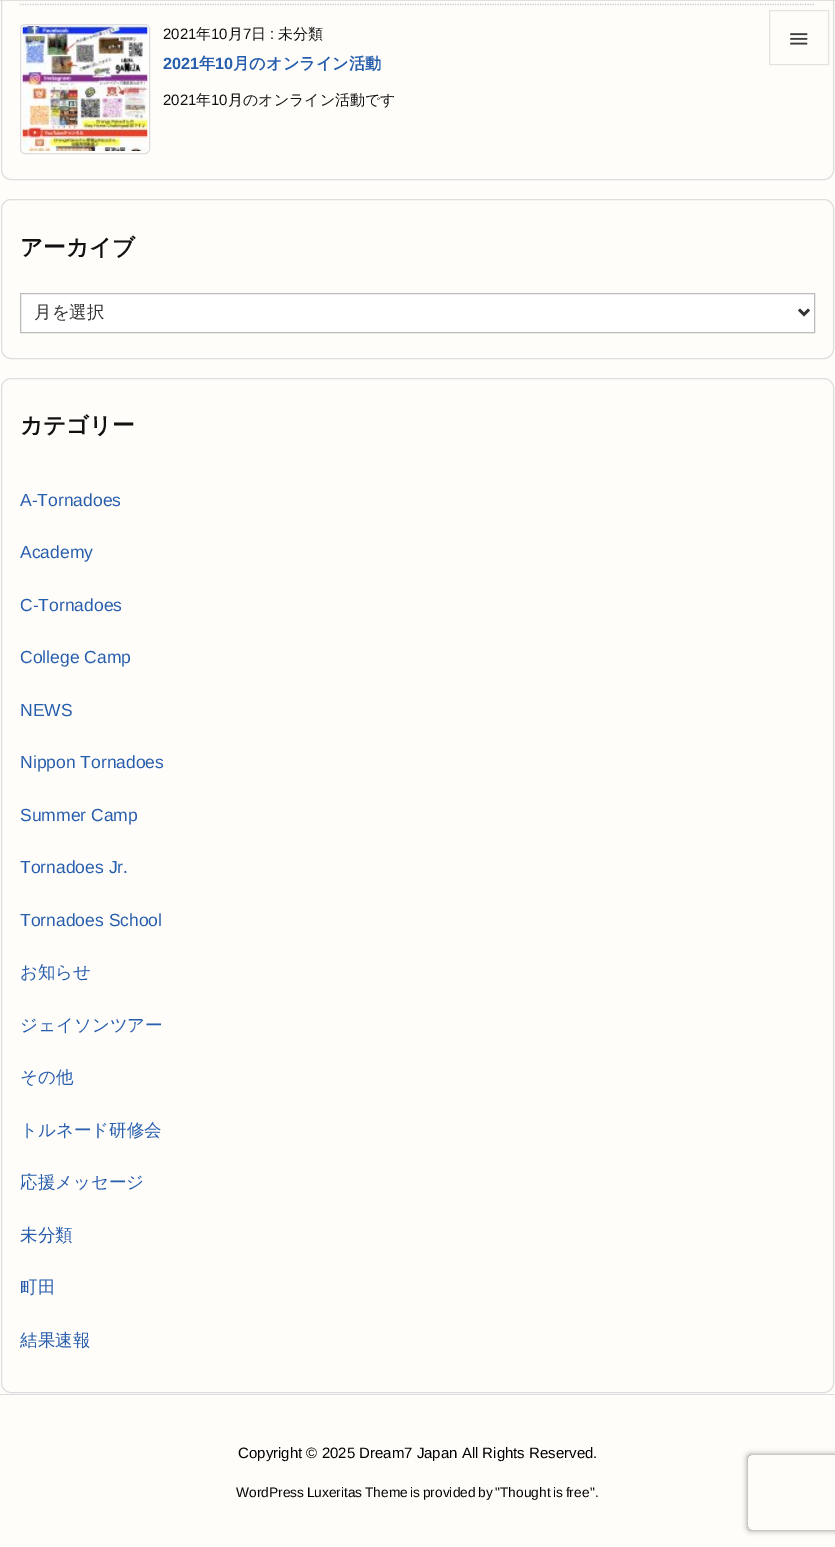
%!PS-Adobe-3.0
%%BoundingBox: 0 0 835 1547
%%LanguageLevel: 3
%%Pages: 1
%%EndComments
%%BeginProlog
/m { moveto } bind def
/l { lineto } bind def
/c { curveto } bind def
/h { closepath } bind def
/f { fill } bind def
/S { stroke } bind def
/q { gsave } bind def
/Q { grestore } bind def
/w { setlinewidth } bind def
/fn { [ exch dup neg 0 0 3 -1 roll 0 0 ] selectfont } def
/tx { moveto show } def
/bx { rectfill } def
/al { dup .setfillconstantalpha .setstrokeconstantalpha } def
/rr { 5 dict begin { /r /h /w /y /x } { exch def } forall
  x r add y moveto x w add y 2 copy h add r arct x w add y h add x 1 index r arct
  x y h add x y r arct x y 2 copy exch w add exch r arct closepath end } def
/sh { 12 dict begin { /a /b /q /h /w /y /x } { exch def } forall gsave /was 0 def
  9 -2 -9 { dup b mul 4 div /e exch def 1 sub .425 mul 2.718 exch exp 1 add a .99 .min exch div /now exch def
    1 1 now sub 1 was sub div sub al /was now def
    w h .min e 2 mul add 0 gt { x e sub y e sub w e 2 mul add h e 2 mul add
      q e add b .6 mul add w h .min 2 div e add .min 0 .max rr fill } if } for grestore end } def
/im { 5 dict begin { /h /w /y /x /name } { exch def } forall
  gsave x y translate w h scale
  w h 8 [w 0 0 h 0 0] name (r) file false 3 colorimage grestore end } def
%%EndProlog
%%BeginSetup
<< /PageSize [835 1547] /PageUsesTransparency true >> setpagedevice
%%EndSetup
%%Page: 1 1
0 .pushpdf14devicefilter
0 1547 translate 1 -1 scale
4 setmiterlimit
1 0.992 0.976 setrgbcolor
0 0 835 1547 bx
0.867 setgray
1.5 -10.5 832 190 9.5 rr S
0.9 al
1 0.992 0.976 setrgbcolor
0 0 835 1 bx
0.867 setgray
0 0 835 1 bx
1 al
0.89 0.89 0.886 setrgbcolor
769.5 10.5 59 54 rectstroke
(image0.raw) 790 33 18 12 im
0.8 setgray
1.2 w
[1.25 1.25] 0 setdash
20 4.5 m 815 4.5 l S
0.867 setgray
1 w
[] 0 setdash
20.5 24.5 129 129 4.5 rr S
(image1.raw) 22 26 126 125 im
/LiberationSans-Regular 15 fn
0.067 setgray
(2021) 163 39 tx
/WenQuanYiZenHei-Medium 15 fn
(年) 196 39 tx
/LiberationSans-Regular 15 fn
(10) 211 39 tx
/WenQuanYiZenHei-Medium 15 fn
(月) 228 39 tx
/LiberationSans-Regular 15 fn
(7) 243 39 tx
/WenQuanYiZenHei-Medium 15 fn
(日) 251 39 tx
/LiberationSans-Regular 15 fn
(:) 270 39 tx
/WenQuanYiZenHei-Medium 15 fn
(未分類) 278 39 tx
/LiberationSans-Bold 16.25 fn
0.153 0.365 0.678 setrgbcolor
(2021) 163 69 tx
/WenQuanYiZenHei-Bold 16.25 fn
(年) 199 69 tx
/LiberationSans-Bold 16.25 fn
(10) 215 69 tx
/WenQuanYiZenHei-Bold 16.25 fn
(月のオンライン活動) 233 69 tx
/LiberationSans-Regular 15 fn
0.067 setgray
(2021) 163 105 tx
/WenQuanYiZenHei-Medium 15 fn
(年) 196 105 tx
/LiberationSans-Regular 15 fn
(10) 211 105 tx
/WenQuanYiZenHei-Medium 15 fn
(月のオンライン活動です) 228 105 tx
0.867 setgray
1.5 199.5 832 159 9.5 rr S
/WenQuanYiZenHei-Bold 22.5 fn
0.067 setgray
(アーカイブ) 20 255 tx
1 setgray
20.5 293.5 m 814.5 293.5 l 814.5 332.5 l 20.5 332.5 l h q f Q
0.733 setgray
S
0.2 setgray
2.5 w
799 309.5 m 804 314.5 l 809 309.5 l S
/WenQuanYiZenHei-Medium 17.5 fn
(月を選択) 34 318 tx
0.867 setgray
1 w
1.5 378.5 832 1014 9.5 rr S
/WenQuanYiZenHei-Bold 22.5 fn
0.067 setgray
(カテゴリー) 20 433 tx
/LiberationSans-Regular 17.5 fn
0.153 0.365 0.678 setrgbcolor
(A-Tornadoes) 20 506 tx
(Academy) 20 558 tx
(C-Tornadoes) 20 611 tx
(College Camp) 20 663 tx
(NEWS) 20 716 tx
(Nippon Tornadoes) 20 768 tx
(Summer Camp) 20 821 tx
(Tornadoes Jr.) 20 873 tx
(Tornadoes School) 20 926 tx
/WenQuanYiZenHei-Medium 17.5 fn
(お知らせ) 20 978 tx
(ジェイソンツアー) 20 1031 tx
(その他) 20 1083 tx
(トルネード研修会) 20 1136 tx
(応援メッセージ) 20 1188 tx
(未分類) 20 1241 tx
(町田) 20 1293 tx
(結果速報) 20 1346 tx
0.867 setgray
0 1394 835 1 bx
/LiberationSans-Regular 15 fn
0 setgray
(Copyright © 2025 Dream7 Japan All Rights Reserved.) 238 1458 tx
/LiberationSans-Regular 13.75 fn
236 1497 m -1.25 0 32 (WordPress Luxeritas Theme is provided by "Thought is free) widthshow
(".) 590 1497 tx
q
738 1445 m 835 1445 l 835 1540 l 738 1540 l h 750.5 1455 m 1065.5 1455 l 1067 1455 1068 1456 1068 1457.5 c 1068 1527.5 l 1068 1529 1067 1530 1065.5 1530 c 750.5 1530 l 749 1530 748 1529 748 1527.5 c 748 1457.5 l 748 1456 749 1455 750.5 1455 c h eoclip newpath
0.502 setgray
748 1455 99 75 2.5 3 1 sh
Q
.poppdf14devicefilter showpage
%%EOF
